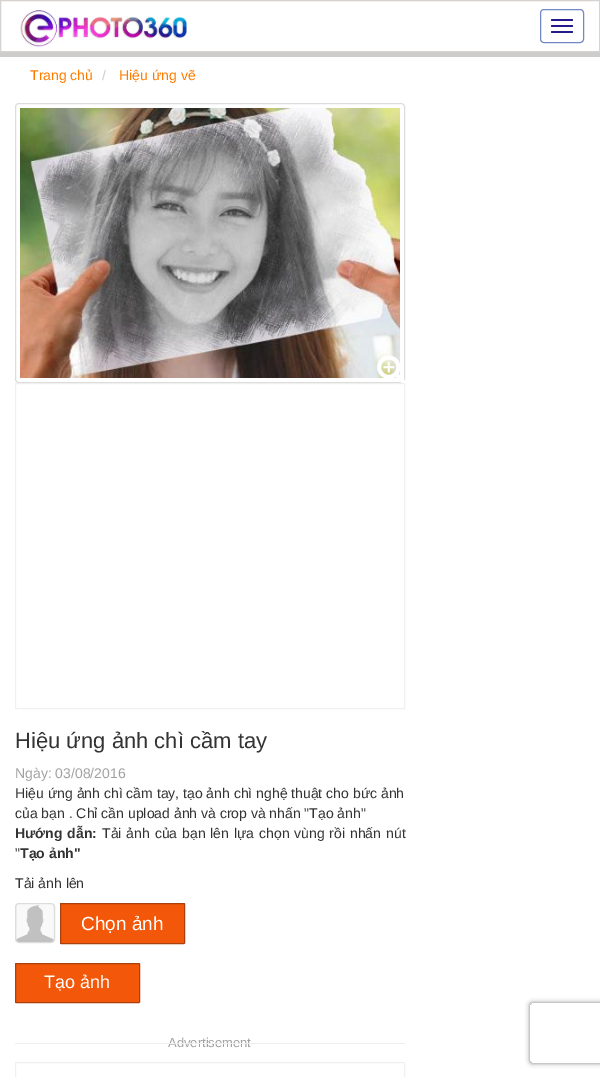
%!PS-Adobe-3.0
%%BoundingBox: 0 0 600 1077
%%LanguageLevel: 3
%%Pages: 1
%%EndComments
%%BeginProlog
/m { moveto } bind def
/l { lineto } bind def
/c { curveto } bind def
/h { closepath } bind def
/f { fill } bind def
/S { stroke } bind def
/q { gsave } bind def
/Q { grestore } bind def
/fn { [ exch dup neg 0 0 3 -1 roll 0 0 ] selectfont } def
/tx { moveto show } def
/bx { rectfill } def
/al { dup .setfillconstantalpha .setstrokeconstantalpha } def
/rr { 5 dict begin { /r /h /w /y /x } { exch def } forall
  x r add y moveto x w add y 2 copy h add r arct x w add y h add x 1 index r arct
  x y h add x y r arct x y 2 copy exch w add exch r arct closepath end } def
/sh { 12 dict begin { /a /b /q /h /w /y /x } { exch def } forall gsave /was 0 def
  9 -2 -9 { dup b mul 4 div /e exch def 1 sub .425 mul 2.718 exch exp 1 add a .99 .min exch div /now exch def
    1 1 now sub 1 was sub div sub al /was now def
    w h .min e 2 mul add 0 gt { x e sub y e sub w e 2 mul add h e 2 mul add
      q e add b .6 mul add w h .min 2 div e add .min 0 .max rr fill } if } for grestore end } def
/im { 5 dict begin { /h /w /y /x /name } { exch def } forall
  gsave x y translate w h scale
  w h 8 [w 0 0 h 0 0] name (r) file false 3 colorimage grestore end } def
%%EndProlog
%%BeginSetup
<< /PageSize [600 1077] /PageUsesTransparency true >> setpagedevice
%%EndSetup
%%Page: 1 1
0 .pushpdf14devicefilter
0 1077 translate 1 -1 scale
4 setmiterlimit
0.8 setgray
0 0 600 1077 bx
1 setgray
0.5 0.5 m 599.5 0.5 l 599.5 51.5 l 0.5 51.5 l h q f Q
0.839 0.824 0.812 setrgbcolor
S
(image0.raw) 20 10 167 37 im
0.451 0.537 0.78 setrgbcolor
540.5 9.5 43 33 3.5 rr S
0.137 0.106 0.549 setrgbcolor
551 19 22 2 1 rr f
551 25 22 2 1 rr f
551 31 22 2 1 rr f
1 setgray
0 57 600 1020 bx
/LiberationSans-Regular 14 fn
1 0.482 0 setrgbcolor
(Trang chủ) 30 80 tx
0.8 setgray
(/) 102 80 tx
1 0.482 0 setrgbcolor
(Hiệu ứng vẽ) 119 80 tx
0.867 setgray
15.5 103.5 389 279 3.5 rr S
(image1.raw) 20 108 380 270 im
(image2.raw) 377 355 28 28 im
0.941 0.941 0.937 setrgbcolor
15.5 383.5 389 325 rectstroke
/LiberationSans-Regular 22 fn
0.2 setgray
(Hiệu ứng ảnh chì cầm tay) 15 748 tx
/LiberationSans-Regular 14 fn
0.631 setgray
(Ngày: 03/08/2016) 15 778 tx
0.2 setgray
(Hiệu ứng ảnh chì cầm tay, tạo ảnh chì nghệ thuật cho bức ảnh) 15 798 tx
(của bạn . Chỉ cần upload ảnh và crop và nhấn "Tạo ảnh") 15 818 tx
/LiberationSans-Bold 14 fn
15 838 m 1 0 32 (Hướng dẫn:) widthshow
/LiberationSans-Regular 14 fn
102 838 m 1 0 32 (Tải ảnh của bạn lên lựa chọn vùng rồi nhấn nút) widthshow
(") 15 858 tx
/LiberationSans-Bold 14 fn
(Tạo ảnh") 20 858 tx
/LiberationSans-Regular 14 fn
(Tải ảnh lên) 15 888 tx
(image3.raw) 16 904 38 38 im
0.867 setgray
15.5 903.5 39 39 3.5 rr S
0.953 0.341 0.035 setrgbcolor
60.5 903.5 124 40 0.5 rr q f Q
0.663 0.255 0.055 setrgbcolor
S
/LiberationSans-Regular 19 fn
1 setgray
(Chọn ảnh) 81 930 tx
0.953 0.341 0.035 setrgbcolor
15.5 963.5 124 39 0.5 rr q f Q
0.663 0.255 0.055 setrgbcolor
S
/LiberationSans-Regular 18 fn
1 setgray
(Tạo ảnh) 44 988 tx
q
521 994 m 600 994 l 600 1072 l 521 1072 l h 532 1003 m 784 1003 l 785 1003 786 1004 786 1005 c 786 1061 l 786 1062 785 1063 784 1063 c 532 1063 l 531 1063 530 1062 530 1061 c 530 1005 l 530 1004 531 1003 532 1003 c h eoclip newpath
0.502 setgray
530 1003 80 60 2 2.5 1 sh
Q
/LiberationSans-Regular 13 fn
0.631 setgray
(Advertisement) 168 1047 tx
0.933 setgray
15 1043 390 1 bx
0.941 0.941 0.937 setrgbcolor
15.5 1062.5 389 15 rectstroke
.poppdf14devicefilter showpage
%%EOF
